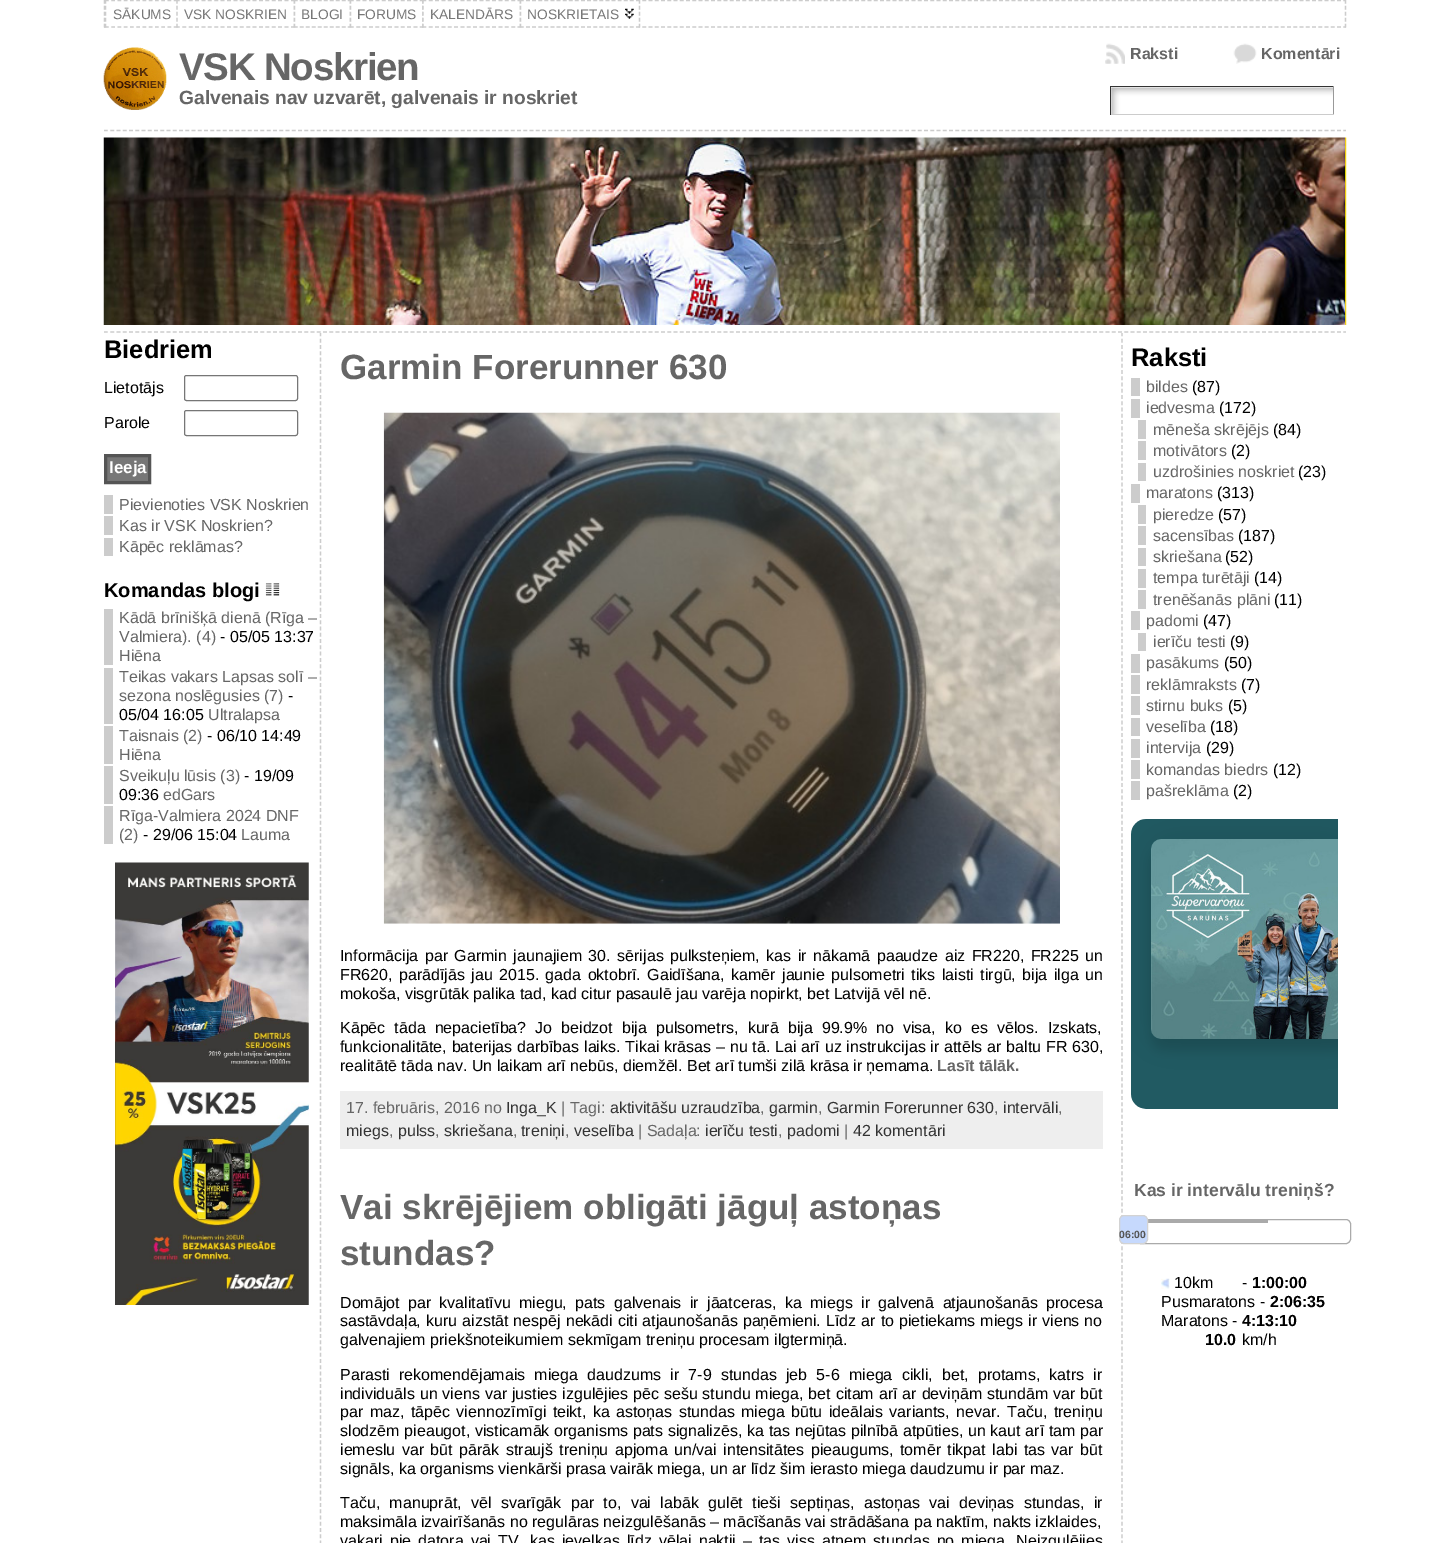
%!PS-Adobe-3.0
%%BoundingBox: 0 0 1450 1543
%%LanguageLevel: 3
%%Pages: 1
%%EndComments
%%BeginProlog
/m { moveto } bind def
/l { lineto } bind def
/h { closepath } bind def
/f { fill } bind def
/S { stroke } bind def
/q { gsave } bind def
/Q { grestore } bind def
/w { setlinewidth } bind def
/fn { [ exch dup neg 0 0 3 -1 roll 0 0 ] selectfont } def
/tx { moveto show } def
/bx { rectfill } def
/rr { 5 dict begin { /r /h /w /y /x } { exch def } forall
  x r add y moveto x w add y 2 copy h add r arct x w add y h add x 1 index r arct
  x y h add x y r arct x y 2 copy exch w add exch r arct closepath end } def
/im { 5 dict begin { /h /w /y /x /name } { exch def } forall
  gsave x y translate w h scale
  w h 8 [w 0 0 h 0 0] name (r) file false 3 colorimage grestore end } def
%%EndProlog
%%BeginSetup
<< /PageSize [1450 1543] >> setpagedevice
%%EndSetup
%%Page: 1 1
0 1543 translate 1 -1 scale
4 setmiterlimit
1 setgray
0 0 1450 1543 bx
0.8 setgray
1.2 w
[3.75 2.51] 0 setdash
104 0.5 m 1346 0.5 l S
[3.75 2.19] 0 setdash
1345.5 0 m 1345.5 27.5 l S
[3.75 2.51] 0 setdash
104 27 m 1346 27 l S
[3.75 2.19] 0 setdash
104.5 0 m 104.5 27.5 l S
1 setgray
105 0 71 28 bx
0.8 setgray
[3.75 2.5] 0 setdash
105 0.5 m 177.5 0.5 l S
105 27 m 177.5 27 l S
[3.75 2.19] 0 setdash
105.5 0 m 105.5 27.5 l S
/LiberationSans-Regular 13.75 fn
0.467 setgray
(SĀKUMS) 113 19 tx
1 setgray
176 0 118 28 bx
0.8 setgray
[3.75 2.64] 0 setdash
176 0.5 m 295 0.5 l S
[3.75 2.19] 0 setdash
294.5 0 m 294.5 27.5 l S
[3.75 2.64] 0 setdash
176 27 m 295 27 l S
[3.75 2.19] 0 setdash
177 0 m 177 27.5 l S
0.467 setgray
(VSK NOSKRIEN) 184 19 tx
1 setgray
294 0 56 28 bx
0.8 setgray
[3.75 2.23] 0 setdash
294 0.5 m 351 0.5 l S
[3.75 2.19] 0 setdash
350.5 0 m 350.5 27.5 l S
[3.75 2.23] 0 setdash
294 27 m 351 27 l S
[3.75 2.19] 0 setdash
294.5 0 m 294.5 27.5 l S
0.467 setgray
(BLOGI) 301 19 tx
1 setgray
350 0 71 28 bx
0.8 setgray
[3.75 2.61] 0 setdash
350 0.5 m 424 0.5 l S
[3.75 2.19] 0 setdash
423 0 m 423 27.5 l S
[3.75 2.61] 0 setdash
350 27 m 424 27 l S
[3.75 2.19] 0 setdash
350.5 0 m 350.5 27.5 l S
0.467 setgray
(FORUMS) 357 19 tx
1 setgray
423 0 97 28 bx
0.8 setgray
[3.75 2.59] 0 setdash
422.5 0.5 m 521 0.5 l S
[3.75 2.19] 0 setdash
520.5 0 m 520.5 27.5 l S
[3.75 2.59] 0 setdash
422.5 27 m 521 27 l S
[3.75 2.19] 0 setdash
423 0 m 423 27.5 l S
0.467 setgray
(KALENDĀRS) 430 19 tx
1 setgray
520 0 120 28 bx
(image0.raw) 625 8 9 11 im
0.8 setgray
[3.75 2.36] 0 setdash
520 0.5 m 640 0.5 l S
[3.75 2.19] 0 setdash
639.5 0 m 639.5 27.5 l S
[3.75 2.36] 0 setdash
520 27 m 640 27 l S
[3.75 2.19] 0 setdash
520.5 0 m 520.5 27.5 l S
0.467 setgray
(NOSKRIETAIS) 527 19 tx
(image1.raw) 103 47 64 63 im
/LiberationSans-Bold 38.5 fn
0.4 setgray
179 80 m -1.25 0 (VSK Noskrien) ashow
/LiberationSans-Bold 19.2 fn
(Galvenais nav uzvarēt, galvenais ir noskriet) 179 104 tx
(image2.raw) 1105 43 20 21 im
/LiberationSans-Bold 16 fn
(Raksti) 1130 59 tx
(image3.raw) 1233 43 24 21 im
(Komentāri) 1261 59 tx
(image4.raw) 1111 87 222 27 im
0.2 setgray
1110 86 224 1 bx
0.6 setgray
1333 86 1 29 bx
0.8 setgray
1110 114 224 1 bx
0.2 setgray
1110 86 1 29 bx
0.8 setgray
[3.75 2.51] 0 setdash
104 130.5 m 1346 130.5 l S
(image5.raw) 103 137 1244 188 im
320.5 332.5 m 320.5 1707.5 l S
1122 332.5 m 1122 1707.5 l S
1 setgray
320 332 803 1 bx
0.8 setgray
104 332 m 1346 332 l S
/LiberationSans-Bold 25.5 fn
0 setgray
(Biedriem) 104 358 tx
/LiberationSans-Regular 16 fn
(Lietotājs) 104 393 tx
0.463 setgray
1 w
[] 0 setdash
184.5 375.5 113 25 2 rr S
0 setgray
(Parole) 104 428 tx
0.463 setgray
184.5 410.5 113 25 2 rr S
0.467 setgray
105.5 455.5 m 149.5 455.5 l 149.5 482.5 l 105.5 482.5 l h q f Q
0.333 setgray
3 w
S
/LiberationSans-Bold 17 fn
1 setgray
(Ieeja) 109 473 tx
0.8 setgray
104 495 9 19 bx
/LiberationSans-Regular 16 fn
0.4 setgray
(Pievienoties VSK Noskrien) 119 510 tx
0.8 setgray
104 516 9 19 bx
0.4 setgray
(Kas ir VSK Noskrien?) 119 531 tx
0.8 setgray
104 538 9 18 bx
0.4 setgray
(Kāpēc reklāmas?) 119 552 tx
/LiberationSans-Bold 20 fn
0 setgray
(Komandas blogi) 104 597 tx
(image6.raw) 265 583 15 13 im
0.8 setgray
104 609 9 56 bx
/LiberationSans-Regular 16 fn
0.4 setgray
(Kādā brīnišķā dienā \(Rīga –) 119 623 tx
(Valmiera\). \(4\)) 119 642 tx
0 setgray
(- 05/05 13:37) 220 642 tx
0.4 setgray
(Hiēna) 119 661 tx
0.8 setgray
104 668 9 56 bx
0.4 setgray
(Teikas vakars Lapsas solī –) 119 682 tx
(sezona noslēgusies \(7\)) 119 701 tx
0 setgray
(-) 288 701 tx
(05/04 16:05) 119 720 tx
0.4 setgray
(Ultralapsa) 208 720 tx
0.8 setgray
104 726 9 38 bx
0.4 setgray
(Taisnais \(2\)) 119 741 tx
0 setgray
(- 06/10 14:49) 207 741 tx
0.4 setgray
(Hiēna) 119 760 tx
0.8 setgray
104 766 9 38 bx
0.4 setgray
(Sveikuļu lūsis \(3\)) 119 781 tx
0 setgray
(- 19/09) 244 781 tx
(09:36) 119 800 tx
0.4 setgray
(edGars) 163 800 tx
0.8 setgray
104 806 9 38 bx
0.4 setgray
(Rīga-Valmiera 2024 DNF) 119 821 tx
(\(2\)) 119 840 tx
0 setgray
(- 29/06 15:04) 143 840 tx
0.4 setgray
(Lauma) 241 840 tx
(image7.raw) 115 862 194 443 im
/LiberationSans-Bold 35 fn
(Garmin Forerunner 630) 340 379 tx
(image8.raw) 383 412 677 512 im
/LiberationSans-Regular 16 fn
0 setgray
340 961 m 2.1 0 32 (Informācija par Garmin jaunajiem 30. sērijas pulksteņiem, kas ir nākamā paaudze aiz FR220, FR225 un) widthshow
340 980 m 2 0 32 (FR620, parādījās jau 2015. gada oktobrī. Gaidīšana, kamēr jaunie pulsometri tiks laisti tirgū, bija ilga un) widthshow
(mokoša, visgrūtāk palika tad, kad citur pasaulē jau varēja nopirkt, bet Latvijā vēl nē.) 340 999 tx
340 1033 m 4.6 0 32 (Kāpēc tāda nepacietība? Jo beidzot bija pulsometrs, kurā bija 99.9% no visa, ko es vēlos. Izskats,) widthshow
340 1052 m 0.4 0 32 (funkcionalitāte, baterijas darbības laiks. Tikai krāsas – nu tā. Lai arī uz instrukcijas ir attēls ar baltu FR 630,) widthshow
(realitātē tāda nav. Un laikam arī nebūs, diemžēl. Bet arī tumši zilā krāsa ir ņemama.) 340 1071 tx
/LiberationSans-Bold 16 fn
0.4 setgray
(Lasīt tālāk.) 937 1071 tx
0.933 setgray
340 1091 763 58 bx
/LiberationSans-Regular 16 fn
0.4 setgray
(17. februāris, 2016 no) 346 1113 tx
0.2 setgray
(Inga_K) 506 1113 tx
0.4 setgray
(| Tagi:) 561 1113 tx
0.2 setgray
(aktivitāšu uzraudzība) 610 1113 tx
0.4 setgray
(,) 760 1113 tx
0.2 setgray
(garmin) 769 1113 tx
0.4 setgray
(,) 818 1113 tx
0.2 setgray
(Garmin Forerunner 630) 827 1113 tx
0.4 setgray
(,) 994 1113 tx
0.2 setgray
(intervāli) 1003 1113 tx
0.4 setgray
(,) 1058 1113 tx
0.2 setgray
(miegs) 346 1136 tx
0.4 setgray
(,) 389 1136 tx
0.2 setgray
(pulss) 398 1136 tx
0.4 setgray
(,) 435 1136 tx
0.2 setgray
(skriešana) 444 1136 tx
0.4 setgray
(,) 513 1136 tx
0.2 setgray
(treniņi) 521 1136 tx
0.4 setgray
(,) 565 1136 tx
0.2 setgray
(veselība) 574 1136 tx
0.4 setgray
(| Sadaļa:) 638 1136 tx
0.2 setgray
(ierīču testi) 705 1136 tx
0.4 setgray
(,) 778 1136 tx
0.2 setgray
(padomi) 787 1136 tx
0.4 setgray
(|) 844 1136 tx
0.2 setgray
(42 komentāri) 853 1136 tx
/LiberationSans-Bold 35 fn
0.4 setgray
(Vai skrējējiem obligāti jāguļ astoņas) 340 1219 tx
(stundas?) 340 1265 tx
/LiberationSans-Regular 16 fn
0 setgray
340 1308 m 3.9 0 32 (Domājot par kvalitatīvu miegu, pats galvenais ir jāatceras, ka miegs ir galvenā atjaunošanās procesa) widthshow
340 1326 m 0.6 0 32 (sastāvdaļa, kuru aizstāt nespēj nekādi citi atjaunošanās paņēmieni. Līdz ar to pietiekams miegs ir viens no) widthshow
(galvenajiem priekšnoteikumiem sekmīgam treniņu procesam ilgtermiņā.) 340 1345 tx
340 1380 m 4.75 0 32 (Parasti rekomendējamais miega daudzums ir 7-9 stundas jeb 5-6 miega cikli, bet, protams, katrs ir) widthshow
340 1399 m 0.5 0 32 (individuāls un viens var justies izgulējies pēc sešu stundu miega, bet citam arī ar deviņām stundām var būt) widthshow
340 1417 m 2 0 32 (par maz, tāpēc viennozīmīgi teikt, ka astoņas stundas miega būtu ideālais variants, nevar. Taču, treniņu) widthshow
340 1436 m 0.25 0 32 (slodzēm pieaugot, visticamāk organisms pats signalizēs, ka tas nejūtas pilnībā atpūties, un kaut arī tam par) widthshow
340 1455 m 2.1 0 32 (iemeslu var būt pārāk straujš treniņu apjoma un/vai intensitātes pieaugums, tomēr tikpat labi tas var būt) widthshow
(signāls, ka organisms vienkārši prasa vairāk miega, un ar līdz šim ierasto miega daudzumu ir par maz.) 340 1474 tx
340 1508 m 5 0 32 (Taču, manuprāt, vēl svarīgāk par to, vai labāk gulēt tieši septiņas, astoņas vai deviņas stundas, ir) widthshow
(maksimāla izvairīšanās no regulāras neizgulēšanās – mācīšanās vai strādāšana pa naktīm, nakts izklaides,) 340 1527 tx
340 1546 m 2.6 0 32 (vakari pie datora vai TV, kas ievelkas līdz vēlai naktij – tas viss atņem stundas no miega. Neizgulējies) widthshow
/LiberationSans-Bold 25.5 fn
(Raksti) 1131 366 tx
/LiberationSans-Regular 16 fn
0.4 setgray
(bildes) 1146 392 tx
0.8 setgray
1131 378 9 18 bx
0 setgray
(\(87\)) 1192 392 tx
0.4 setgray
(iedvesma) 1146 413 tx
0.8 setgray
1131 399 9 19 bx
0 setgray
(\(172\)) 1219 413 tx
0.4 setgray
(mēneša skrējējs) 1153 435 tx
0.8 setgray
1138 420 8 19 bx
0 setgray
(\(84\)) 1273 435 tx
0.4 setgray
(motivātors) 1153 456 tx
0.8 setgray
1138 441 8 19 bx
0 setgray
(\(2\)) 1231 456 tx
0.4 setgray
(uzdrošinies noskriet) 1153 477 tx
0.8 setgray
1138 463 8 18 bx
0 setgray
(\(23\)) 1298 477 tx
0.4 setgray
(maratons) 1146 498 tx
0.8 setgray
1131 484 9 19 bx
0 setgray
(\(313\)) 1217 498 tx
0.4 setgray
(pieredze) 1153 520 tx
0.8 setgray
1138 505 8 19 bx
0 setgray
(\(57\)) 1218 520 tx
0.4 setgray
(sacensības) 1153 541 tx
0.8 setgray
1138 526 8 19 bx
0 setgray
(\(187\)) 1238 541 tx
0.4 setgray
(skriešana) 1153 562 tx
0.8 setgray
1138 548 8 18 bx
0 setgray
(\(52\)) 1225 562 tx
0.4 setgray
(tempa turētāji) 1153 583 tx
0.8 setgray
1138 569 8 19 bx
0 setgray
(\(14\)) 1254 583 tx
0.4 setgray
(trenēšanās plāni) 1153 605 tx
0.8 setgray
1138 590 8 19 bx
0 setgray
(\(11\)) 1274 605 tx
0.4 setgray
(padomi) 1146 626 tx
0.8 setgray
1131 611 9 19 bx
0 setgray
(\(47\)) 1203 626 tx
0.4 setgray
(ierīču testi) 1153 647 tx
0.8 setgray
1138 633 8 18 bx
0 setgray
(\(9\)) 1230 647 tx
0.4 setgray
(pasākums) 1146 668 tx
0.8 setgray
1131 654 9 19 bx
0 setgray
(\(50\)) 1224 668 tx
0.4 setgray
(reklāmraksts) 1146 690 tx
0.8 setgray
1131 675 9 19 bx
0 setgray
(\(7\)) 1241 690 tx
0.4 setgray
(stirnu buks) 1146 711 tx
0.8 setgray
1131 696 9 19 bx
0 setgray
(\(5\)) 1228 711 tx
0.4 setgray
(veselība) 1146 732 tx
0.8 setgray
1131 718 9 18 bx
0 setgray
(\(18\)) 1210 732 tx
0.4 setgray
(intervija) 1146 753 tx
0.8 setgray
1131 739 9 19 bx
0 setgray
(\(29\)) 1206 753 tx
0.4 setgray
(komandas biedrs) 1146 775 tx
0.8 setgray
1131 760 9 19 bx
0 setgray
(\(12\)) 1273 775 tx
0.4 setgray
(pašreklāma) 1146 796 tx
0.8 setgray
1131 781 9 19 bx
0 setgray
(\(2\)) 1233 796 tx
(image9.raw) 1131 819 207 290 im
/LiberationSans-Bold 17.5 fn
0.4 setgray
(Kas ir intervālu treniņš?) 1134 1196 tx
0.667 setgray
1 w
1136.5 1219.5 214 24 4.5 rr S
1148 1220 120 3 bx
0.776 0.851 0.992 setrgbcolor
1119.5 1215.5 28 28 4.5 rr q f Q
0.827 setgray
S
/LiberationSans-Bold 10.5 fn
0.333 setgray
(06:00) 1119 1238 tx
(image10.raw) 1161 1278 9 11 im
/LiberationSans-Regular 16 fn
0 setgray
(10km) 1174 1288 tx
(-) 1242 1288 tx
/LiberationSans-Bold 16 fn
(1:00:00) 1252 1288 tx
/LiberationSans-Regular 16 fn
(Pusmaratons -) 1161 1307 tx
/LiberationSans-Bold 16 fn
(2:06:35) 1270 1307 tx
/LiberationSans-Regular 16 fn
(Maratons -) 1161 1326 tx
/LiberationSans-Bold 16 fn
(4:13:10) 1242 1326 tx
(10.0) 1205 1345 tx
/LiberationSans-Regular 16 fn
(km/h) 1242 1345 tx
showpage
%%EOF
